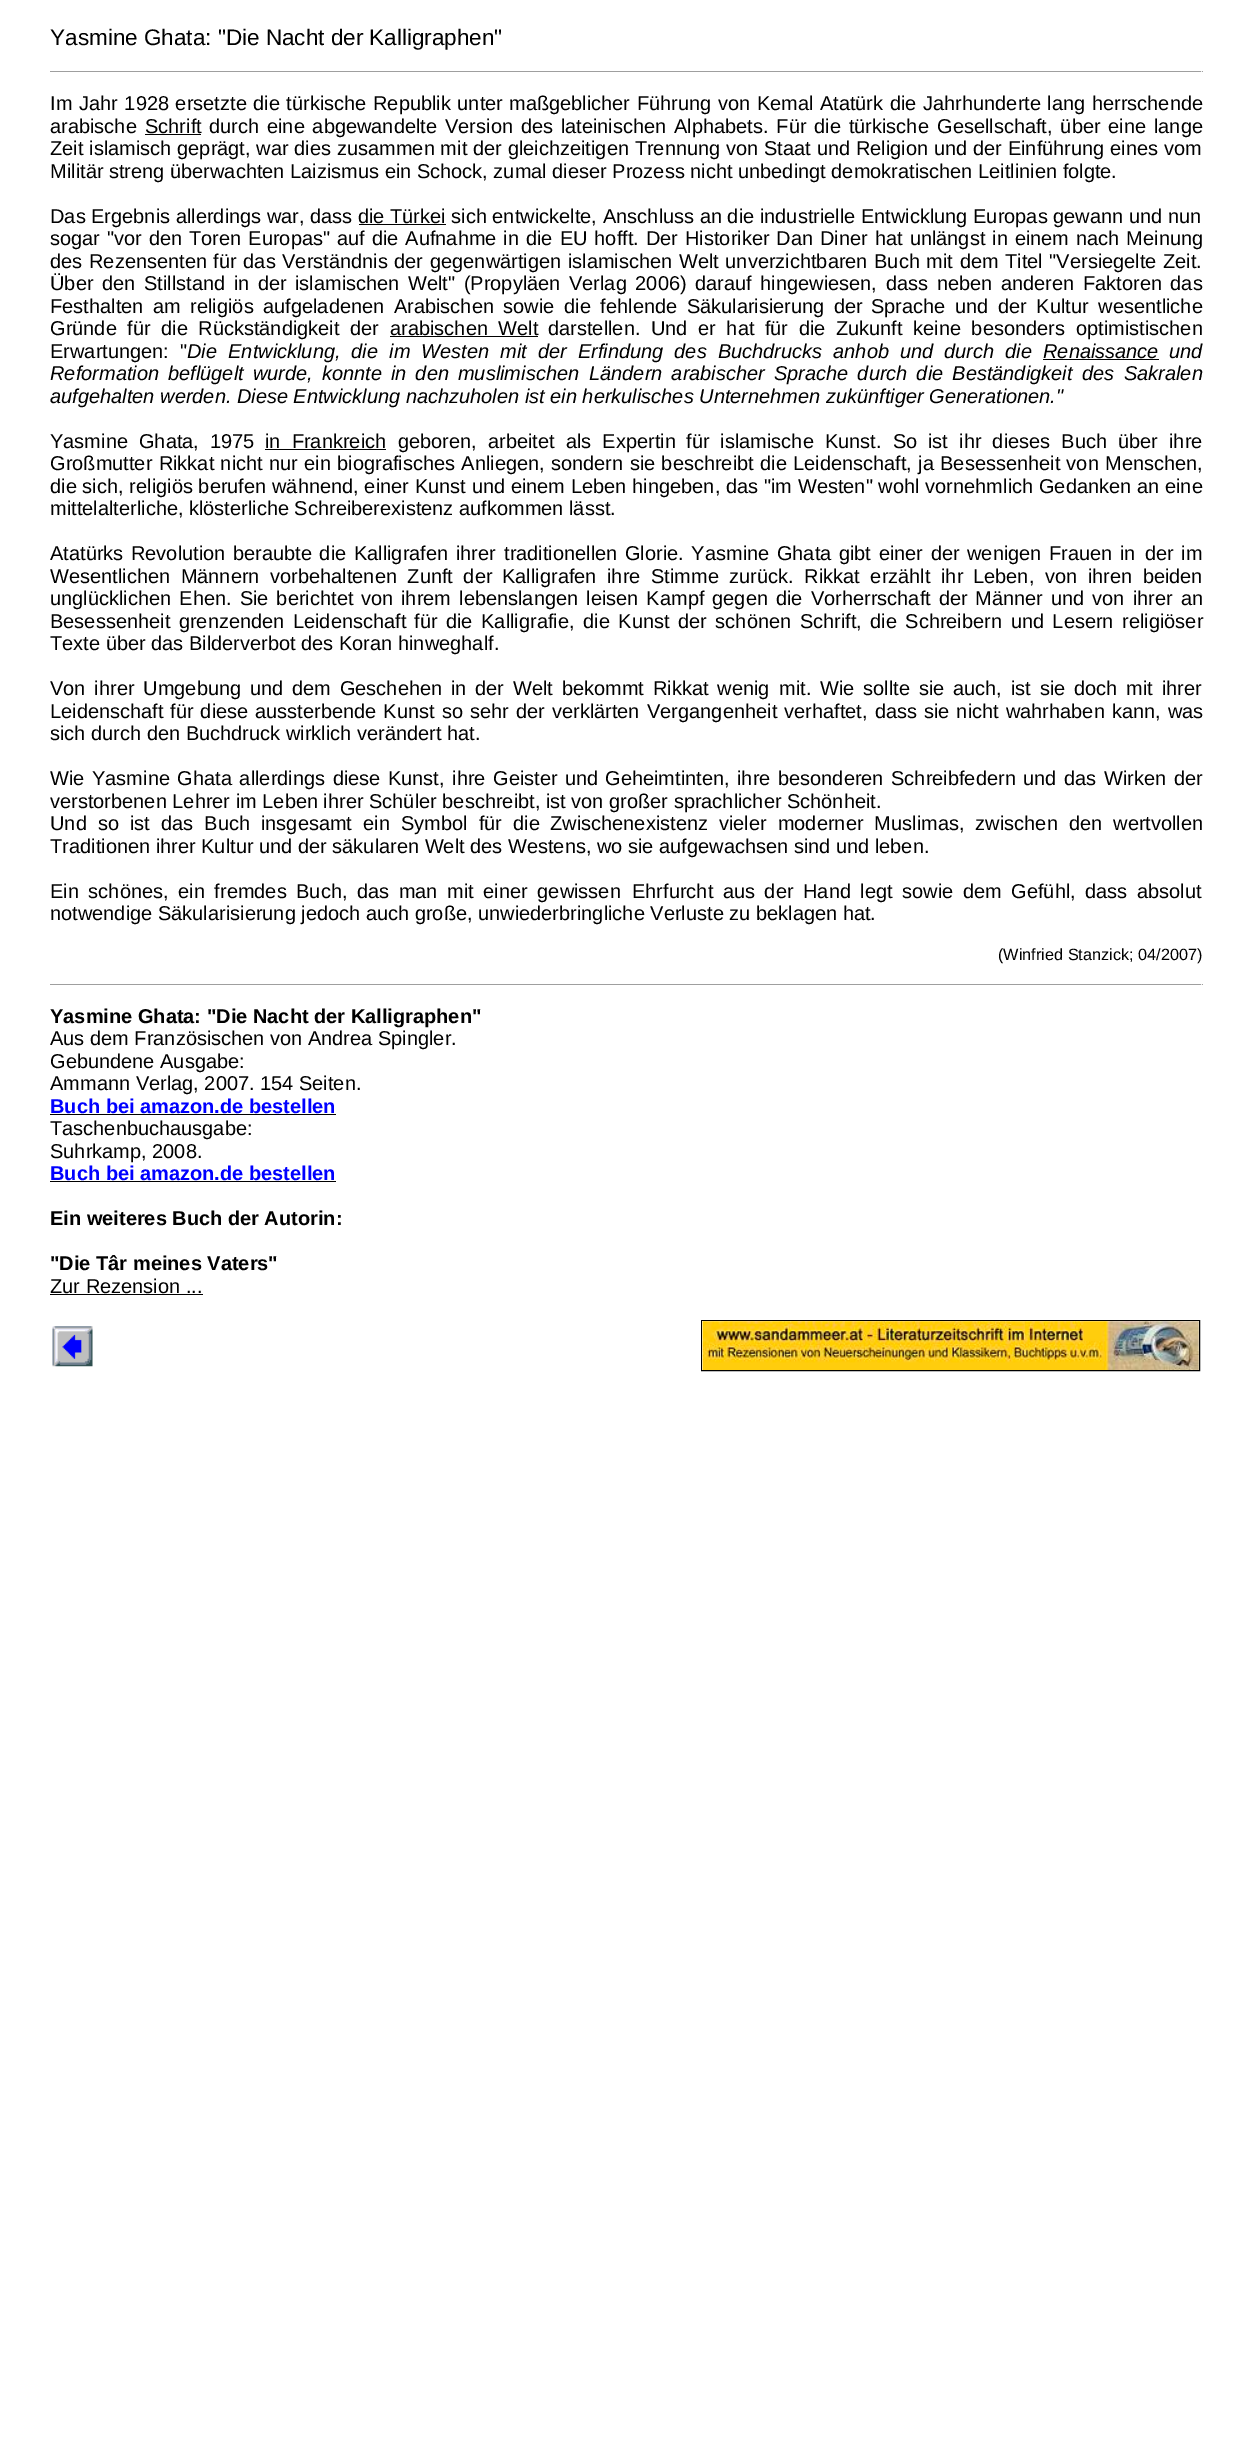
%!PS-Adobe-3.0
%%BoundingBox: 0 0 1252 2447
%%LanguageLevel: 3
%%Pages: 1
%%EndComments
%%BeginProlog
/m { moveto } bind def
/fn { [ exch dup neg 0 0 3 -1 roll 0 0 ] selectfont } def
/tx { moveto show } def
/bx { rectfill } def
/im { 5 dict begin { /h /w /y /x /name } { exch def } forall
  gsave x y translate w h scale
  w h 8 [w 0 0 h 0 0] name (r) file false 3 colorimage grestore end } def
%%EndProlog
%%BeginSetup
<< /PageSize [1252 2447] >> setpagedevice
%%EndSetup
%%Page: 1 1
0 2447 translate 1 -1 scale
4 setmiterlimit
1 setgray
0 0 1252 2447 bx
/LiberationSans-Regular 22.5 fn
0 setgray
(Yasmine Ghata: "Die Nacht der Kalligraphen") 50 45 tx
0.624 setgray
50 71 1153 1 bx
0.933 setgray
1201 71 1 1 bx
/LiberationSans-Regular 20 fn
0 setgray
(Im) 50 110 tx
79 110 m 1 0 32 (Jahr 1928 ersetzte die türkische Republik unter) widthshow
509 110 m 1 0 32 (maßgeblicher Führung von Kemal Atatürk die) widthshow
923 110 m 1 0 32 (Jahrhunderte lang herrschende) widthshow
(arabische) 50 133 tx
(Schrift) 145 133 tx
145 134 56 1 bx
209 133 m 2.25 0 32 (durch eine abgewandelte) widthshow
445 133 m 2.25 0 32 (Version des lateinischen Alphabets. Für die türkische) widthshow
937 133 m 2.25 0 32 (Gesellschaft, über eine lange) widthshow
50 155 m 0.25 0 32 (Zeit islamisch geprägt, war dies zusammen mit der gleichzeitigen Trennung von Staat und Religion und der Einführung eines vom) widthshow
(Militär streng überwachten Laizismus ein Schock, zumal dieser Prozess nicht unbedingt demokratischen Leitlinien folgte.) 50 178 tx
(Das Ergebnis allerdings war, dass die Türkei sich entwickelte,) 50 223 tx
359 224 87 1 bx
(Anschluss an die industrielle Entwicklung Europas gewann und nun) 603 223 tx
(sogar) 50 245 tx
107 245 m 1.4 0 32 ("vor den Toren Europas" auf die Aufnahme in die EU hofft. Der) widthshow
685 245 m 1.4 0 32 (Historiker Dan Diner hat unlängst in einem nach Meinung) widthshow
(des) 50 268 tx
89 268 m 1 0 32 (Rezensenten für das Verständnis der) widthshow
430 268 m 1 0 32 (gegenwärtigen islamischen Welt unverzichtbaren Buch mit dem) widthshow
1005 268 m 1 0 32 (Titel "Versiegelte Zeit.) widthshow
50 290 m 3 0 32 (Über den Stillstand in der) widthshow
295 290 m 3 0 32 (islamischen Welt" \(Propyläen Verlag 2006\) darauf hingewiesen,) widthshow
886 290 m 3 0 32 (dass neben anderen Faktoren das) widthshow
50 313 m 4 0 32 (Festhalten am religiös) widthshow
263 313 m 4 0 32 (aufgeladenen Arabischen sowie die fehlende Säkularisierung der) widthshow
871 313 m 4 0 32 (Sprache und der Kultur wesentliche) widthshow
50 335 m 5 0 32 (Gründe für) widthshow
161 335 m 5 0 32 (die Rückständigkeit der) widthshow
390 335 m 5 0 32 (arabischen Welt) widthshow
390 336 148 1 bx
548 335 m 5 0 32 (darstellen. Und er hat für die Zukunft keine besonders) widthshow
(optimistischen) 1076 335 tx
50 358 m 5.5 0 32 (Erwartungen: ") widthshow
/LiberationSans-Italic 20 fn
187 358 m 5.5 0 32 (Die Entwicklung, die im Westen) widthshow
500 358 m 5.5 0 32 (mit der Erfindung des Buchdrucks anhob und durch die) widthshow
(Renaissance) 1043 358 tx
1043 359 116 1 bx
(und) 1169 358 tx
50 380 m 3.5 0 32 (Reformation beflügelt wurde, konnte in den muslimischen) widthshow
589 380 m 3.5 0 32 (Ländern arabischer Sprache durch die Beständigkeit) widthshow
1082 380 m 4 0 32 (des Sakralen) widthshow
(aufgehalten werden. Diese Entwicklung nachzuholen ist ein herkulisches Unternehmen zukünftiger Generationen.") 50 403 tx
/LiberationSans-Regular 20 fn
50 448 m 5.5 0 32 (Yasmine Ghata, 1975) widthshow
265 448 m 5.5 0 32 (in Frankreich) widthshow
265 449 121 1 bx
398 448 m 5.5 0 32 (geboren, arbeitet als Expertin) widthshow
686 448 m 5.5 0 32 (für islamische Kunst. So ist ihr dieses Buch über) widthshow
(ihre) 1169 448 tx
50 470 m 0.75 0 32 (Großmutter Rikkat nicht nur ein biografisches Anliegen,) widthshow
551 470 m 0.75 0 32 (sondern sie beschreibt die Leidenschaft, ja Besessenheit von Menschen,) widthshow
50 493 m 0.2 0 32 (die sich, religiös berufen wähnend, einer Kunst und einem Leben hingeben, das "im Westen" wohl vornehmlich Gedanken an eine) widthshow
(mittelalterliche, klösterliche Schreiberexistenz aufkommen lässt.) 50 515 tx
50 560 m 2 0 32 (Atatürks Revolution beraubte die Kalligrafen ihrer) widthshow
504 560 m 2 0 32 (traditionellen Glorie. Yasmine Ghata gibt einer der wenigen Frauen in) widthshow
1145 560 m 2 0 32 (der im) widthshow
50 583 m 5 0 32 (Wesentlichen Männern vorbehaltenen Zunft der) widthshow
502 583 m 5 0 32 (Kalligrafen ihre Stimme zurück. Rikkat erzählt ihr) widthshow
973 583 m 5 0 32 (Leben, von ihren beiden) widthshow
50 605 m 2.5 0 32 (unglücklichen Ehen. Sie berichtet von) widthshow
401 605 m 2.5 0 32 (ihrem lebenslangen leisen Kampf gegen die Vorherrschaft der) widthshow
975 605 m 2.5 0 32 (Männer und von ihrer an) widthshow
50 628 m 3 0 32 (Besessenheit grenzenden Leidenschaft) widthshow
414 628 m 3 0 32 (für die Kalligrafie, die Kunst der schönen Schrift,) widthshow
870 628 m 3 0 32 (die Schreibern und Lesern religiöser) widthshow
(Texte über das Bilderverbot des Koran hinweghalf.) 50 650 tx
50 695 m 3.25 0 32 (Von ihrer Umgebung und dem Geschehen in der Welt bekommt Rikkat wenig) widthshow
779 695 m 3.25 0 32 (mit. Wie sollte sie auch, ist sie doch mit ihrer) widthshow
(Leidenschaft) 50 718 tx
170 718 m 1.5 0 32 (für diese aussterbende Kunst so sehr der verklärten) widthshow
647 718 m 1.5 0 32 (Vergangenheit verhaftet, dass sie nicht wahrhaben kann, was) widthshow
(sich durch den Buchdruck wirklich verändert hat.) 50 740 tx
50 785 m 2 0 32 (Wie Yasmine Ghata allerdings diese Kunst, ihre Geister und) widthshow
605 785 m 2 0 32 (Geheimtinten, ihre besonderen Schreibfedern und das Wirken der) widthshow
(verstorbenen Lehrer im Leben ihrer Schüler beschreibt, ist von großer sprachlicher Schönheit.) 50 808 tx
50 830 m 5.5 0 32 (Und so ist das Buch insgesamt ein Symbol für die) widthshow
550 830 m 5.5 0 32 (Zwischenexistenz vieler moderner Muslimas, zwischen den wertvollen) widthshow
(Traditionen ihrer Kultur und der säkularen Welt des Westens, wo sie aufgewachsen sind und leben.) 50 853 tx
50 898 m 4 0 32 (Ein schönes, ein fremdes Buch, das man mit einer gewissen) widthshow
632 898 m 4 0 32 (Ehrfurcht aus der Hand legt sowie dem Gefühl, dass absolut) widthshow
(notwendige Säkularisierung jedoch auch große, unwiederbringliche Verluste zu beklagen hat.) 50 920 tx
/LiberationSans-Regular 16.25 fn
(\(Winfried Stanzick; 04/2007\)) 998 960 tx
0.624 setgray
50 984 1153 1 bx
0.933 setgray
1201 984 1 1 bx
/LiberationSans-Bold 20 fn
0 setgray
(Yasmine Ghata: "Die Nacht der Kalligraphen") 50 1023 tx
/LiberationSans-Regular 20 fn
(Aus dem Französischen von Andrea Spingler.) 50 1045 tx
(Gebundene Ausgabe:) 50 1068 tx
(Ammann Verlag, 2007. 154 Seiten.) 50 1090 tx
/LiberationSans-Bold 20 fn
0 0 1 setrgbcolor
(Buch bei amazon.de bestellen) 50 1113 tx
0 setgray
50 1114 286 1 bx
/LiberationSans-Regular 20 fn
(Taschenbuchausgabe:) 50 1135 tx
(Suhrkamp, 2008.) 50 1158 tx
/LiberationSans-Bold 20 fn
0 0 1 setrgbcolor
(Buch bei amazon.de bestellen) 50 1180 tx
0 setgray
50 1181 286 1 bx
(Ein weiteres Buch der Autorin:) 50 1225 tx
("Die Târ meines Vaters") 50 1270 tx
/LiberationSans-Regular 20 fn
(Zur Rezension ...) 50 1293 tx
50 1294 153 1 bx
(image0.raw) 52 1326 41 41 im
701.5 1320.5 498 50 rectstroke
(image1.raw) 702 1321 497 49 im
showpage
%%EOF
